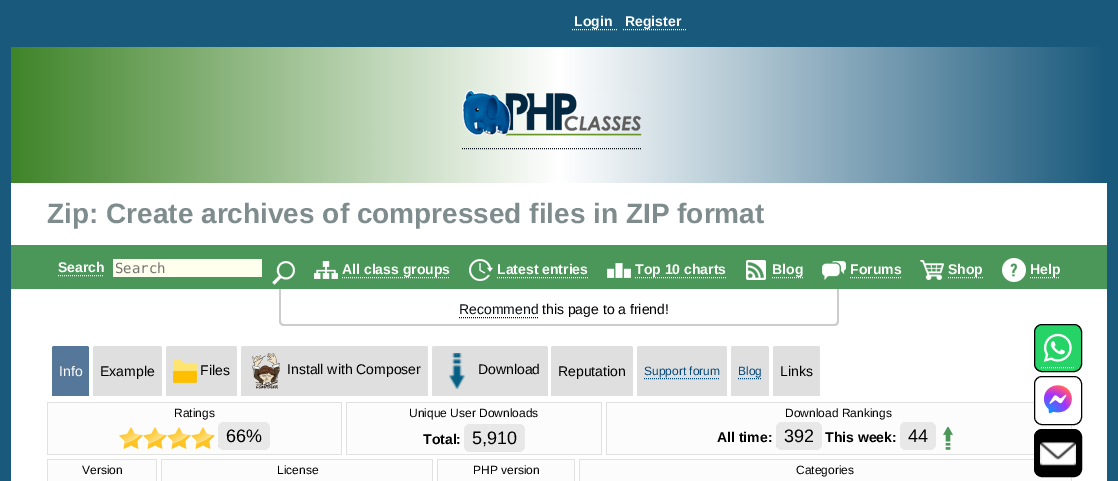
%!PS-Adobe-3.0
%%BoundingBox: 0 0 1118 481
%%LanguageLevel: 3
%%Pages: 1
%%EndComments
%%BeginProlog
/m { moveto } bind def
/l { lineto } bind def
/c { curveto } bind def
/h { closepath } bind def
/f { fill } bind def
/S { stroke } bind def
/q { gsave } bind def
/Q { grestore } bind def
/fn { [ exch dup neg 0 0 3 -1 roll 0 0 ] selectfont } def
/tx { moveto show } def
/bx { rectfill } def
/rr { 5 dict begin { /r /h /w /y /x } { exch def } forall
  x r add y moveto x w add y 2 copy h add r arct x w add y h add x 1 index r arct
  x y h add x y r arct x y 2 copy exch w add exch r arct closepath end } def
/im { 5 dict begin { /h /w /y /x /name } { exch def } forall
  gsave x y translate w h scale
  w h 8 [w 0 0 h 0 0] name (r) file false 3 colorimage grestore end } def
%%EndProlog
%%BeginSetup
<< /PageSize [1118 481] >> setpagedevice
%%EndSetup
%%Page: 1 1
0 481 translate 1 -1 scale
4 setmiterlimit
0.098 0.349 0.486 setrgbcolor
0 0 1118 481 bx
1 setgray
11 183 1096 298 bx
/LiberationSans-Bold 14 fn
(Login) 574 26 tx
[1 1] 0 setdash
572 29.5 m 617 29.5 l S
(Register) 625 26 tx
623 29.5 m 686 29.5 l S
q 11 47 m 1101 47 l 1101 183 l 11 183 l h clip newpath
<< /ShadingType 2 /ColorSpace /DeviceRGB /Coords [11 115 1107 115] /Extend [true true] /Function << /FunctionType 3 /Domain [0 1] /Functions [<< /FunctionType 2 /Domain [0 1] /C0 [0.247 0.518 0.161] /C1 [1 1 1] /N 1 >> << /FunctionType 2 /Domain [0 1] /C0 [1 1 1] /C1 [0.098 0.349 0.486] /N 1 >>] /Bounds [0.5] /Encode [0 1 0 1] >> >> shfill Q
(image0.raw) 462 90 180 46 im
0.035 0.059 0.082 setrgbcolor
462 148.5 m 642 148.5 l S
/LiberationSans-Bold 28 fn
0.498 0.549 0.553 setrgbcolor
(Zip: Create archives of compressed files in ZIP format) 47 223 tx
0.294 0.592 0.349 setrgbcolor
11 245 1096 44 bx
/LiberationSans-Bold 14 fn
1 setgray
(Search) 58 272 tx
58 275.5 m 104 275.5 l S
1 1 0.933 setrgbcolor
113 259 149 18 bx
/DejaVuSansMono-Regular 14 fn
0.459 setgray
(Search) 115 273 tx
(image1.raw) 272 261 23 24 im
(image2.raw) 314 261 24 18 im
/LiberationSans-Bold 14 fn
1 setgray
(All class groups) 342 274 tx
342 277.5 m 450 277.5 l S
(image3.raw) 469 259 24 22 im
(Latest entries) 497 274 tx
497 277.5 m 588 277.5 l S
(image4.raw) 607 263 24 15 im
(Top 10 charts) 635 274 tx
635 277.5 m 726 277.5 l S
(image5.raw) 746 260 20 20 im
(Blog) 772 274 tx
772 277.5 m 803 277.5 l S
(image6.raw) 822 261 24 19 im
(Forums) 850 274 tx
850 277.5 m 902 277.5 l S
(image7.raw) 920 260 24 20 im
(Shop) 948 274 tx
948 277.5 m 983 277.5 l S
(image8.raw) 1002 258 24 24 im
(Help) 1030 274 tx
1030 277.5 m 1060 277.5 l S
0.8 setgray
279 289 m 839 289 l 839 321 l 839 324 837 326 834 326 c 284 326 l 281 326 279 324 279 321 c h 281 289 m 837 289 l 837 321 l 837 323 836 324 834 324 c 284 324 l 282 324 281 323 281 321 c h eofill
/LiberationSans-Regular 14 fn
0.035 0.059 0.082 setrgbcolor
(Recommend) 459 314 tx
459 317.5 m 538 317.5 l S
0 setgray
(this page to a friend!) 542 314 tx
0.333 0.467 0.6 setrgbcolor
54 346 m 87 346 l 88 346 89 347 89 348 c 89 396 l 52 396 l 52 348 l 52 347 53 346 54 346 c h f
1 setgray
(Info) 59 376 tx
0.875 setgray
95 346 m 160 346 l 161 346 162 347 162 348 c 162 396 l 93 396 l 93 348 l 93 347 94 346 95 346 c h f
0 setgray
(Example) 100 376 tx
0.875 setgray
168 346 m 235 346 l 236 346 237 347 237 348 c 237 396 l 166 396 l 166 348 l 166 347 167 346 168 346 c h f
(image9.raw) 173 360 24 23 im
0 setgray
(Files) 200 375 tx
0.875 setgray
243 346 m 426 346 l 427 346 428 347 428 348 c 428 396 l 241 396 l 241 348 l 241 347 242 346 243 346 c h f
(image10.raw) 252 353 28 36 im
0 setgray
(Install with Composer) 287 374 tx
0.875 setgray
434 346 m 546 346 l 547 346 548 347 548 348 c 548 396 l 432 396 l 432 348 l 432 347 433 346 434 346 c h f
(image11.raw) 449 353 16 36 im
0 setgray
(Download) 478 374 tx
0.875 setgray
553 346 m 631 346 l 632 346 633 347 633 348 c 633 396 l 551 396 l 551 348 l 551 347 552 346 553 346 c h f
0 setgray
(Reputation) 558 376 tx
0.875 setgray
639 346 m 725 346 l 726 346 727 347 727 348 c 727 396 l 637 396 l 637 348 l 637 347 638 346 639 346 c h f
/LiberationSans-Regular 12 fn
0.02 0.286 0.482 setrgbcolor
(Support forum) 644 375 tx
644 378.5 m 720 378.5 l S
0.875 setgray
733 346 m 767 346 l 768 346 769 347 769 348 c 769 396 l 731 396 l 731 348 l 731 347 732 346 733 346 c h f
0.02 0.286 0.482 setrgbcolor
(Blog) 738 375 tx
738 378.5 m 762 378.5 l S
0.875 setgray
775 346 m 818 346 l 819 346 820 347 820 348 c 820 396 l 773 396 l 773 348 l 773 347 774 346 775 346 c h f
/LiberationSans-Regular 14 fn
0 setgray
(Links) 780 376 tx
0.988 setgray
48 403 293 51 bx
0.882 setgray
47 402 295 1 bx
341 402 1 53 bx
47 402 1 21 bx
/LiberationSans-Regular 12 fn
0 setgray
(Ratings) 174 417 tx
0.988 setgray
347 403 254 51 bx
0.882 setgray
346 402 256 1 bx
601 402 1 53 bx
346 402 1 21 bx
0 setgray
(Unique User Downloads) 409 417 tx
0.988 setgray
607 403 430 20 bx
0.882 setgray
606 402 428 1 bx
606 402 1 21 bx
0 setgray
(Download Rankings) 785 417 tx
0.882 setgray
47 454 295 1 bx
47 423 1 32 bx
(image12.raw) 119 427 24 22 im
(image12.raw) 143 427 24 22 im
(image12.raw) 167 427 24 22 im
(image12.raw) 191 427 24 22 im
0.149 0.224 0.302 setrgbcolor
218 445.5 m 270 445.5 l S
0.91 setgray
218 422 52 28 6 rr f
/LiberationSans-Regular 18 fn
0 setgray
(66%) 226 442 tx
0.882 setgray
346 454 256 1 bx
346 423 1 32 bx
/LiberationSans-Bold 14 fn
0 setgray
(Total:) 423 444 tx
0.91 setgray
464 424 61 28 6 rr f
/LiberationSans-Regular 18 fn
0 setgray
(5,910) 472 444 tx
0.988 setgray
607 423 464 31 bx
0.882 setgray
1071 423 1 6 bx
606 454 428 1 bx
606 423 1 32 bx
/LiberationSans-Bold 14 fn
0 setgray
(All time:) 717 442 tx
0.149 0.224 0.302 setrgbcolor
776 445.5 m 822 445.5 l S
0.91 setgray
776 422 46 28 6 rr f
/LiberationSans-Regular 18 fn
0 setgray
(392) 784 442 tx
/LiberationSans-Bold 14 fn
(This week:) 825 442 tx
0.91 setgray
900 422 36 28 6 rr f
/LiberationSans-Regular 18 fn
0 setgray
(44) 908 442 tx
(image13.raw) 943 427 10 23 im
0.988 setgray
48 460 108 21 bx
0.882 setgray
47 459 110 1 bx
156 459 1 22 bx
47 459 1 22 bx
/LiberationSans-Regular 12 fn
0 setgray
(Version) 82 474 tx
0.988 setgray
162 460 270 21 bx
0.882 setgray
161 459 272 1 bx
432 459 1 22 bx
161 459 1 22 bx
0 setgray
(License) 277 474 tx
0.988 setgray
438 460 136 21 bx
0.882 setgray
437 459 138 1 bx
574 459 1 22 bx
437 459 1 22 bx
0 setgray
(PHP version) 473 474 tx
0.988 setgray
580 460 491 21 bx
0.882 setgray
579 459 455 1 bx
1071 477 1 4 bx
579 459 1 22 bx
0 setgray
(Categories) 796 474 tx
0.145 0.827 0.4 setrgbcolor
1034.5 324.5 47 47 7.5 rr q f Q
0 setgray
[] 0 setdash
S
(image14.raw) 1043 333 29 29 im
1 setgray
[1 1] 0 setdash
1041 367.5 m 1074 367.5 l S
1034.5 376.5 47 48 7.5 rr q f Q
0 setgray
[] 0 setdash
S
(image15.raw) 1043 385 29 29 im
1034.5 429.5 47 47 7.5 rr q f Q
S
1 setgray
[1 1] 0 setdash
1040 460.5 m 1076 460.5 l S
(image16.raw) 1040 442 36 24 im
showpage
%%EOF
